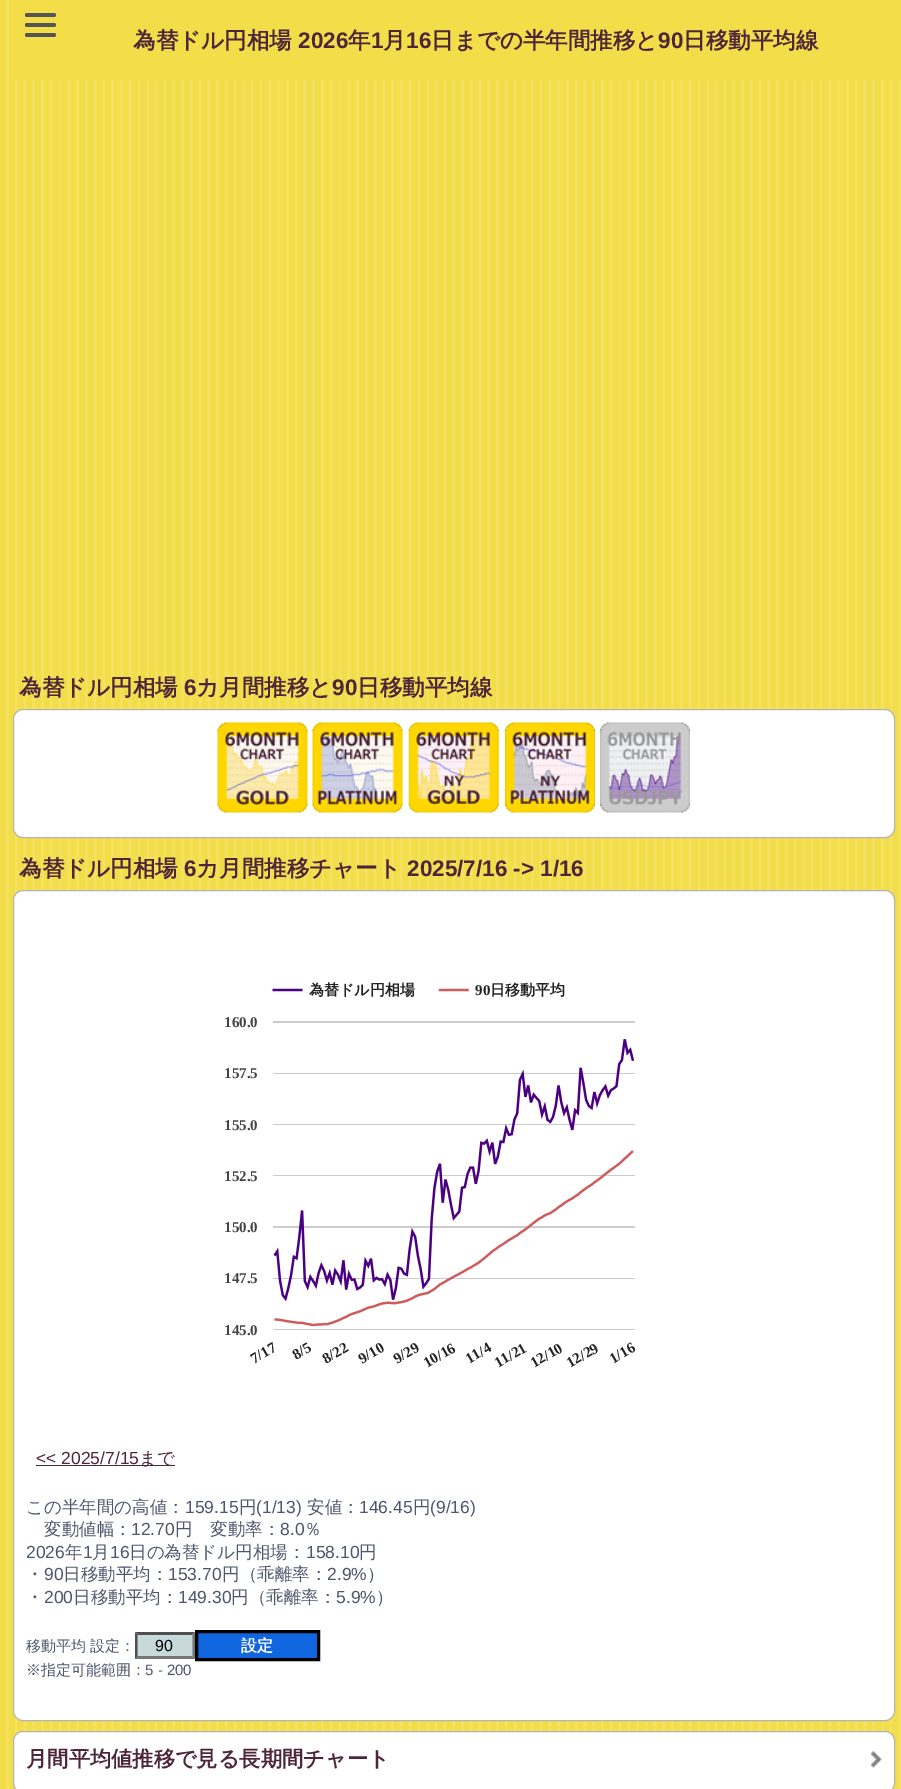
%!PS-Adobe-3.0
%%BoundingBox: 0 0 901 1789
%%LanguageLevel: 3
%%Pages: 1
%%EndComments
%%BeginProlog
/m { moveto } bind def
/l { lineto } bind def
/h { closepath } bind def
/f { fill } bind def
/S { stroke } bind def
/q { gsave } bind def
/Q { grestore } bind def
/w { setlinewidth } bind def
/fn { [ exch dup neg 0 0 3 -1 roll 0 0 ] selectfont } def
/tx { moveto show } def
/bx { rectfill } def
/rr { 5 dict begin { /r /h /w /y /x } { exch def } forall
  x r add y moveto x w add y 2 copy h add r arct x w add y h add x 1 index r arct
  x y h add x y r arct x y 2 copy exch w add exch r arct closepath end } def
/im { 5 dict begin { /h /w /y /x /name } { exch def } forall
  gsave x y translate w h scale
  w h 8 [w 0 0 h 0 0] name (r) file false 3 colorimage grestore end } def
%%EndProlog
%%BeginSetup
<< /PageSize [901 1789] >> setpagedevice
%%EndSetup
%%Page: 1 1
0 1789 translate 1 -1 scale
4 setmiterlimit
0.953 0.867 0.286 setrgbcolor
0 0 901 1789 bx
(image0.raw) 6 0 895 1789 im
14 0 887 80 bx
0.333 setgray
25 13 31 4 2 rr f
25 23 31 4 2 rr f
25 33 31 4 2 rr f
/WenQuanYiZenHei-Bold 22.5 fn
0.302 0.149 0.224 setrgbcolor
(為替ドル円相場) 133 48 tx
/LiberationSans-Bold 22.5 fn
(2026) 298 48 tx
/WenQuanYiZenHei-Bold 22.5 fn
(年) 348 48 tx
/LiberationSans-Bold 22.5 fn
(1) 371 48 tx
/WenQuanYiZenHei-Bold 22.5 fn
(月) 383 48 tx
/LiberationSans-Bold 22.5 fn
(16) 406 48 tx
/WenQuanYiZenHei-Bold 22.5 fn
(日までの半年間推移と) 431 48 tx
/LiberationSans-Bold 22.5 fn
(90) 658 48 tx
/WenQuanYiZenHei-Bold 22.5 fn
(日移動平均線) 683 48 tx
(為替ドル円相場) 19 695 tx
/LiberationSans-Bold 22.5 fn
(6) 184 695 tx
/WenQuanYiZenHei-Bold 22.5 fn
(カ月間推移と) 196 695 tx
/LiberationSans-Bold 22.5 fn
(90) 332 695 tx
/WenQuanYiZenHei-Bold 22.5 fn
(日移動平均線) 357 695 tx
1 setgray
13.5 709.5 881 128 9.5 rr q f Q
0.706 setgray
S
(image1.raw) 217 722 91 91 im
(image2.raw) 312 722 91 91 im
(image3.raw) 408 722 91 91 im
(image4.raw) 505 722 90 91 im
(image5.raw) 600 722 90 91 im
0.302 0.149 0.224 setrgbcolor
(為替ドル円相場) 19 876 tx
/LiberationSans-Bold 22.5 fn
(6) 184 876 tx
/WenQuanYiZenHei-Bold 22.5 fn
(カ月間推移チャート) 196 876 tx
/LiberationSans-Bold 22.5 fn
(2025/7/16 -> 1/16) 407 876 tx
1 setgray
13.5 890.5 881 830 9.5 rr q f Q
0.706 setgray
S
(image6.raw) 272 988 363 342 im
/WenQuanYiZenHei-Bold 15 fn
0.133 setgray
(為替ドル円相場) 309 995 tx
/LiberationSerif-Bold 15 fn
(90) 475 995 tx
/WenQuanYiZenHei-Bold 15 fn
(日移動平均) 490 995 tx
/LiberationSerif-Bold 15 fn
0.267 setgray
(160.0) 224 1027 tx
(157.5) 224 1078 tx
(155.0) 224 1130 tx
(152.5) 224 1181 tx
(150.0) 224 1232 tx
(147.5) 224 1283 tx
(145.0) 224 1335 tx
0.133 setgray
q 254 1364 translate -30 rotate 0 0 m (7/17) show Q
q 296 1360 translate -30 rotate 0 0 m (8/5) show Q
q 326 1364 translate -30 rotate 0 0 m (8/22) show Q
q 362 1364 translate -30 rotate 0 0 m (9/10) show Q
q 397 1364 translate -30 rotate 0 0 m (9/29) show Q
q 427 1368 translate -30 rotate 0 0 m (10/16) show Q
q 469 1364 translate -30 rotate 0 0 m (11/4) show Q
q 498 1368 translate -30 rotate 0 0 m (11/21) show Q
q 534 1368 translate -30 rotate 0 0 m (12/10) show Q
q 570 1368 translate -30 rotate 0 0 m (12/29) show Q
q 613 1364 translate -30 rotate 0 0 m (1/16) show Q
/LiberationSans-Regular 17.5 fn
0.302 0.149 0.224 setrgbcolor
(<< 2025/7/15) 36 1464 tx
36 1465 139 1 bx
/WenQuanYiZenHei-Medium 17.5 fn
(まで) 139 1464 tx
0.298 0.337 0.424 setrgbcolor
(この半年間の高値：) 26 1513 tx
/LiberationSans-Regular 17.5 fn
(159.15) 185 1513 tx
/WenQuanYiZenHei-Medium 17.5 fn
(円) 239 1513 tx
/LiberationSans-Regular 17.5 fn
(\(1/13\)) 256 1513 tx
/WenQuanYiZenHei-Medium 17.5 fn
(安値：) 307 1513 tx
/LiberationSans-Regular 17.5 fn
(146.45) 359 1513 tx
/WenQuanYiZenHei-Medium 17.5 fn
(円) 413 1513 tx
/LiberationSans-Regular 17.5 fn
(\(9/16\)) 430 1513 tx
/WenQuanYiZenHei-Medium 17.5 fn
(変動値幅：) 44 1535 tx
/LiberationSans-Regular 17.5 fn
(12.70) 131 1535 tx
/WenQuanYiZenHei-Medium 17.5 fn
(円　変動率：) 175 1535 tx
/LiberationSans-Regular 17.5 fn
(8.0) 280 1535 tx
/WenQuanYiZenHei-Medium 17.5 fn
(％) 304 1535 tx
/LiberationSans-Regular 17.5 fn
(2026) 26 1558 tx
/WenQuanYiZenHei-Medium 17.5 fn
(年) 65 1558 tx
/LiberationSans-Regular 17.5 fn
(1) 83 1558 tx
/WenQuanYiZenHei-Medium 17.5 fn
(月) 92 1558 tx
/LiberationSans-Regular 17.5 fn
(16) 110 1558 tx
/WenQuanYiZenHei-Medium 17.5 fn
(日の為替ドル円相場：) 129 1558 tx
/LiberationSans-Regular 17.5 fn
(158.10) 306 1558 tx
/WenQuanYiZenHei-Medium 17.5 fn
(円) 359 1558 tx
(・) 26 1580 tx
/LiberationSans-Regular 17.5 fn
(90) 44 1580 tx
/WenQuanYiZenHei-Medium 17.5 fn
(日移動平均：) 63 1580 tx
/LiberationSans-Regular 17.5 fn
(153.70) 168 1580 tx
/WenQuanYiZenHei-Medium 17.5 fn
(円（乖離率：) 222 1580 tx
/LiberationSans-Regular 17.5 fn
(2.9%) 327 1580 tx
/WenQuanYiZenHei-Medium 17.5 fn
(）) 367 1580 tx
(・) 26 1603 tx
/LiberationSans-Regular 17.5 fn
(200) 44 1603 tx
/WenQuanYiZenHei-Medium 17.5 fn
(日移動平均：) 73 1603 tx
/LiberationSans-Regular 17.5 fn
(149.30) 178 1603 tx
/WenQuanYiZenHei-Medium 17.5 fn
(円（乖離率：) 231 1603 tx
/LiberationSans-Regular 17.5 fn
(5.9%) 336 1603 tx
/WenQuanYiZenHei-Medium 17.5 fn
(）) 376 1603 tx
/WenQuanYiZenHei-Medium 15 fn
(移動平均 設定：) 26 1651 tx
0.78 0.851 0.851 setrgbcolor
135 1633 60 26 bx
0.31 setgray
135 1632 m 195 1632 l 192 1635 l 138 1635 l h f
0.463 setgray
195 1632.5 m 195 1659 l 192.5 1656 l 192.5 1635 l h f
195 1659 m 135 1659 l 138 1656 l 192 1656 l h f
0.31 setgray
135 1659 m 135 1632.5 l 137.5 1635 l 137.5 1656 l h f
/LiberationSans-Regular 16 fn
0 setgray
(90) 155 1651 tx
0.063 0.4 0.871 setrgbcolor
196.5 1631.5 m 318.5 1631.5 l 318.5 1659.5 l 196.5 1659.5 l h q f Q
0 setgray
3 w
S
/WenQuanYiZenHei-Bold 16 fn
1 setgray
(設定) 241 1651 tx
/WenQuanYiZenHei-Medium 15 fn
0.298 0.337 0.424 setrgbcolor
(※指定可能範囲：) 26 1675 tx
/LiberationSans-Regular 15 fn
(5 - 200) 145 1675 tx
1 setgray
13.5 1731.5 881 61 9.5 rr q f Q
0.706 setgray
1 w
S
(image7.raw) 871 1751 11 17 im
/WenQuanYiZenHei-Bold 21.25 fn
0.302 0.149 0.224 setrgbcolor
(月間平均値推移で見る長期間チャート) 26 1766 tx
showpage
%%EOF
